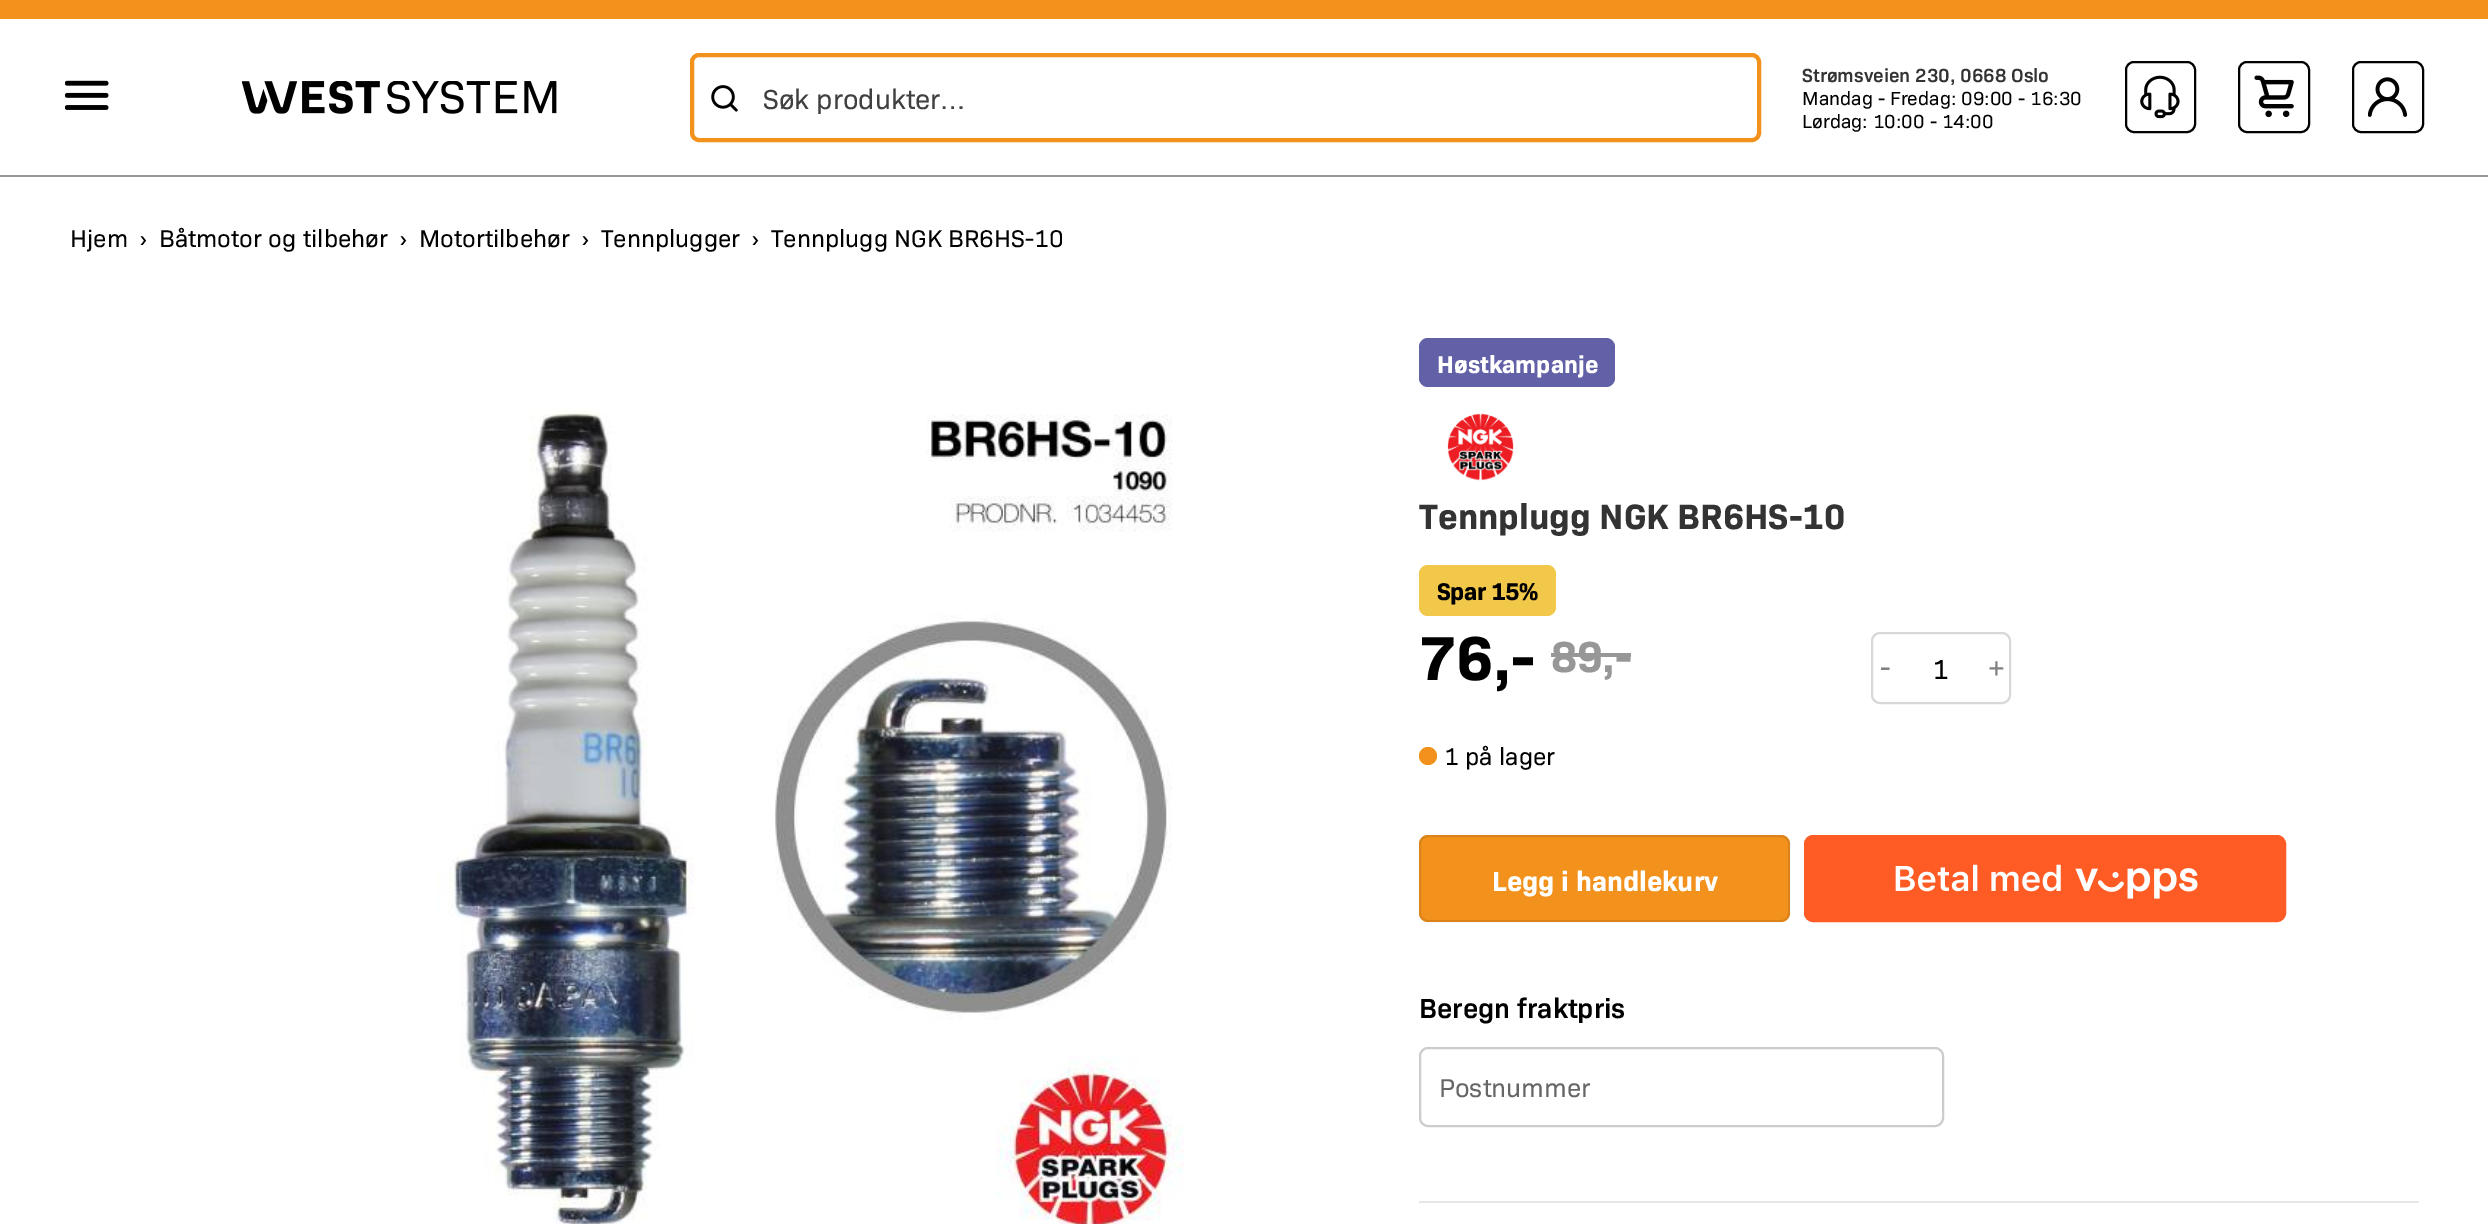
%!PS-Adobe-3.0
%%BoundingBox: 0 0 2488 1224
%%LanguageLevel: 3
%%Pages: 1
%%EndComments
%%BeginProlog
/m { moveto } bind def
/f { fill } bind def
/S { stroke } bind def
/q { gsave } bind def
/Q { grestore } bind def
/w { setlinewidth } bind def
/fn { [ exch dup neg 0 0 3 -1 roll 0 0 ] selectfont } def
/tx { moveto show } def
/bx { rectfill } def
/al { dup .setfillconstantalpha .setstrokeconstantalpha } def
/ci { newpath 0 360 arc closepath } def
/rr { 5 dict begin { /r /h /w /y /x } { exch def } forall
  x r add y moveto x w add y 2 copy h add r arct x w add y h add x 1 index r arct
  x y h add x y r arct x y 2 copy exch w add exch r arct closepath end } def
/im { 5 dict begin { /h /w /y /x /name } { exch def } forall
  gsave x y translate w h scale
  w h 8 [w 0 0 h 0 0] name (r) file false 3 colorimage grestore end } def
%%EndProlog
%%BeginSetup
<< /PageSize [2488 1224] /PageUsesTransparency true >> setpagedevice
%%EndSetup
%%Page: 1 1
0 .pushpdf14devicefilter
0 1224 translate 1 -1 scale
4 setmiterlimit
1 setgray
0 0 2488 1224 bx
0.949 0.573 0.114 setrgbcolor
0 0 2488 19 bx
0.592 setgray
0 175 2488 2 bx
(image0.raw) 65 80 44 30 im
(image1.raw) 242 81 315 33 im
0.949 0.573 0.114 setrgbcolor
4 w
692 55 1067 85 7 rr S
(image2.raw) 711 85 27 27 im
/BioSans-Regular 28 fn
0.251 setgray
(Søk produkter…) 763 109 tx
/BioSans-SemiBold 19.25 fn
0.2 setgray
(Strømsveien 230, 0668 Oslo) 1802 82 tx
/BioSans-Regular 19.25 fn
0 setgray
(Mandag - Fredag: 09:00 - 16:30) 1802 105 tx
(Lørdag: 10:00 - 14:00) 1802 128 tx
2 w
2126 62 69 70 8 rr S
(image3.raw) 2140 75 40 44 im
2239 62 70 70 8 rr S
(image4.raw) 2254 75 40 42 im
2353 62 70 70 8 rr S
(image5.raw) 2368 77 40 40 im
/BioSans-Regular 24.5 fn
(Hjem) 70 247 tx
(›) 140 247 tx
(Båtmotor og tilbehør) 159 247 tx
(›) 400 247 tx
(Motortilbehør) 419 247 tx
(›) 582 247 tx
(Tennplugger) 601 247 tx
(›) 752 247 tx
(Tennplugg NGK BR6HS-10) 771 247 tx
(image6.raw) 437 409 747 815 im
0.384 0.376 0.651 setrgbcolor
1419 338 196 49 9 rr f
/BioSans-Bold 24.5 fn
1 setgray
(Høstkampanje) 1437 373 tx
(image7.raw) 1447 413 67 68 im
/BioSans-Bold 35.75 fn
0.2 setgray
(Tennplugg NGK BR6HS-10) 1419 529 tx
0.949 0.784 0.294 setrgbcolor
1419 565 137 51 9 rr f
/BioSans-Bold 24.5 fn
0 setgray
1437 600 m -0.5 0 (Spar 15%) ashow
/BioSans-Bold 63 fn
1419 680 m -0.5 0 (76,-) ashow
/BioSans-Bold 44 fn
0.592 setgray
1551 672 m -0.5 0 (89,-) ashow
1551 653 80 4 bx
0.847 setgray
1872 633 138 70 8 rr S
/BioSans-Regular 28 fn
0.502 setgray
(-) 1880 677 tx
0 setgray
(1) 1932 679 tx
0.502 setgray
(+) 1988 677 tx
0.949 0.573 0.114 setrgbcolor
1428 756 9 ci f
/BioSans-Regular 24.5 fn
0 setgray
(1 på lager) 1444 765 tx
0.949 0.573 0.114 setrgbcolor
1419 835 371 87 9 rr f
0.1 al
0 setgray
1420 836 369 85 8 rr S
/BioSans-Bold 28 fn
1 al
1 setgray
(Legg i handlekurv) 1492 891 tx
1 0.357 0.141 setrgbcolor
1805 836 480 85 8 rr q f Q
S
(image8.raw) 1895 864 303 35 im
/BioSans-SemiBold 28 fn
0 setgray
(Beregn fraktpris) 1419 1018 tx
0.8 setgray
1420 1048 523 78 8 rr S
/BioSans-Regular 26.25 fn
0.4 setgray
(Postnummer) 1439 1097 tx
0.902 setgray
1419 1201 1000 2 bx
.poppdf14devicefilter showpage
%%EOF
